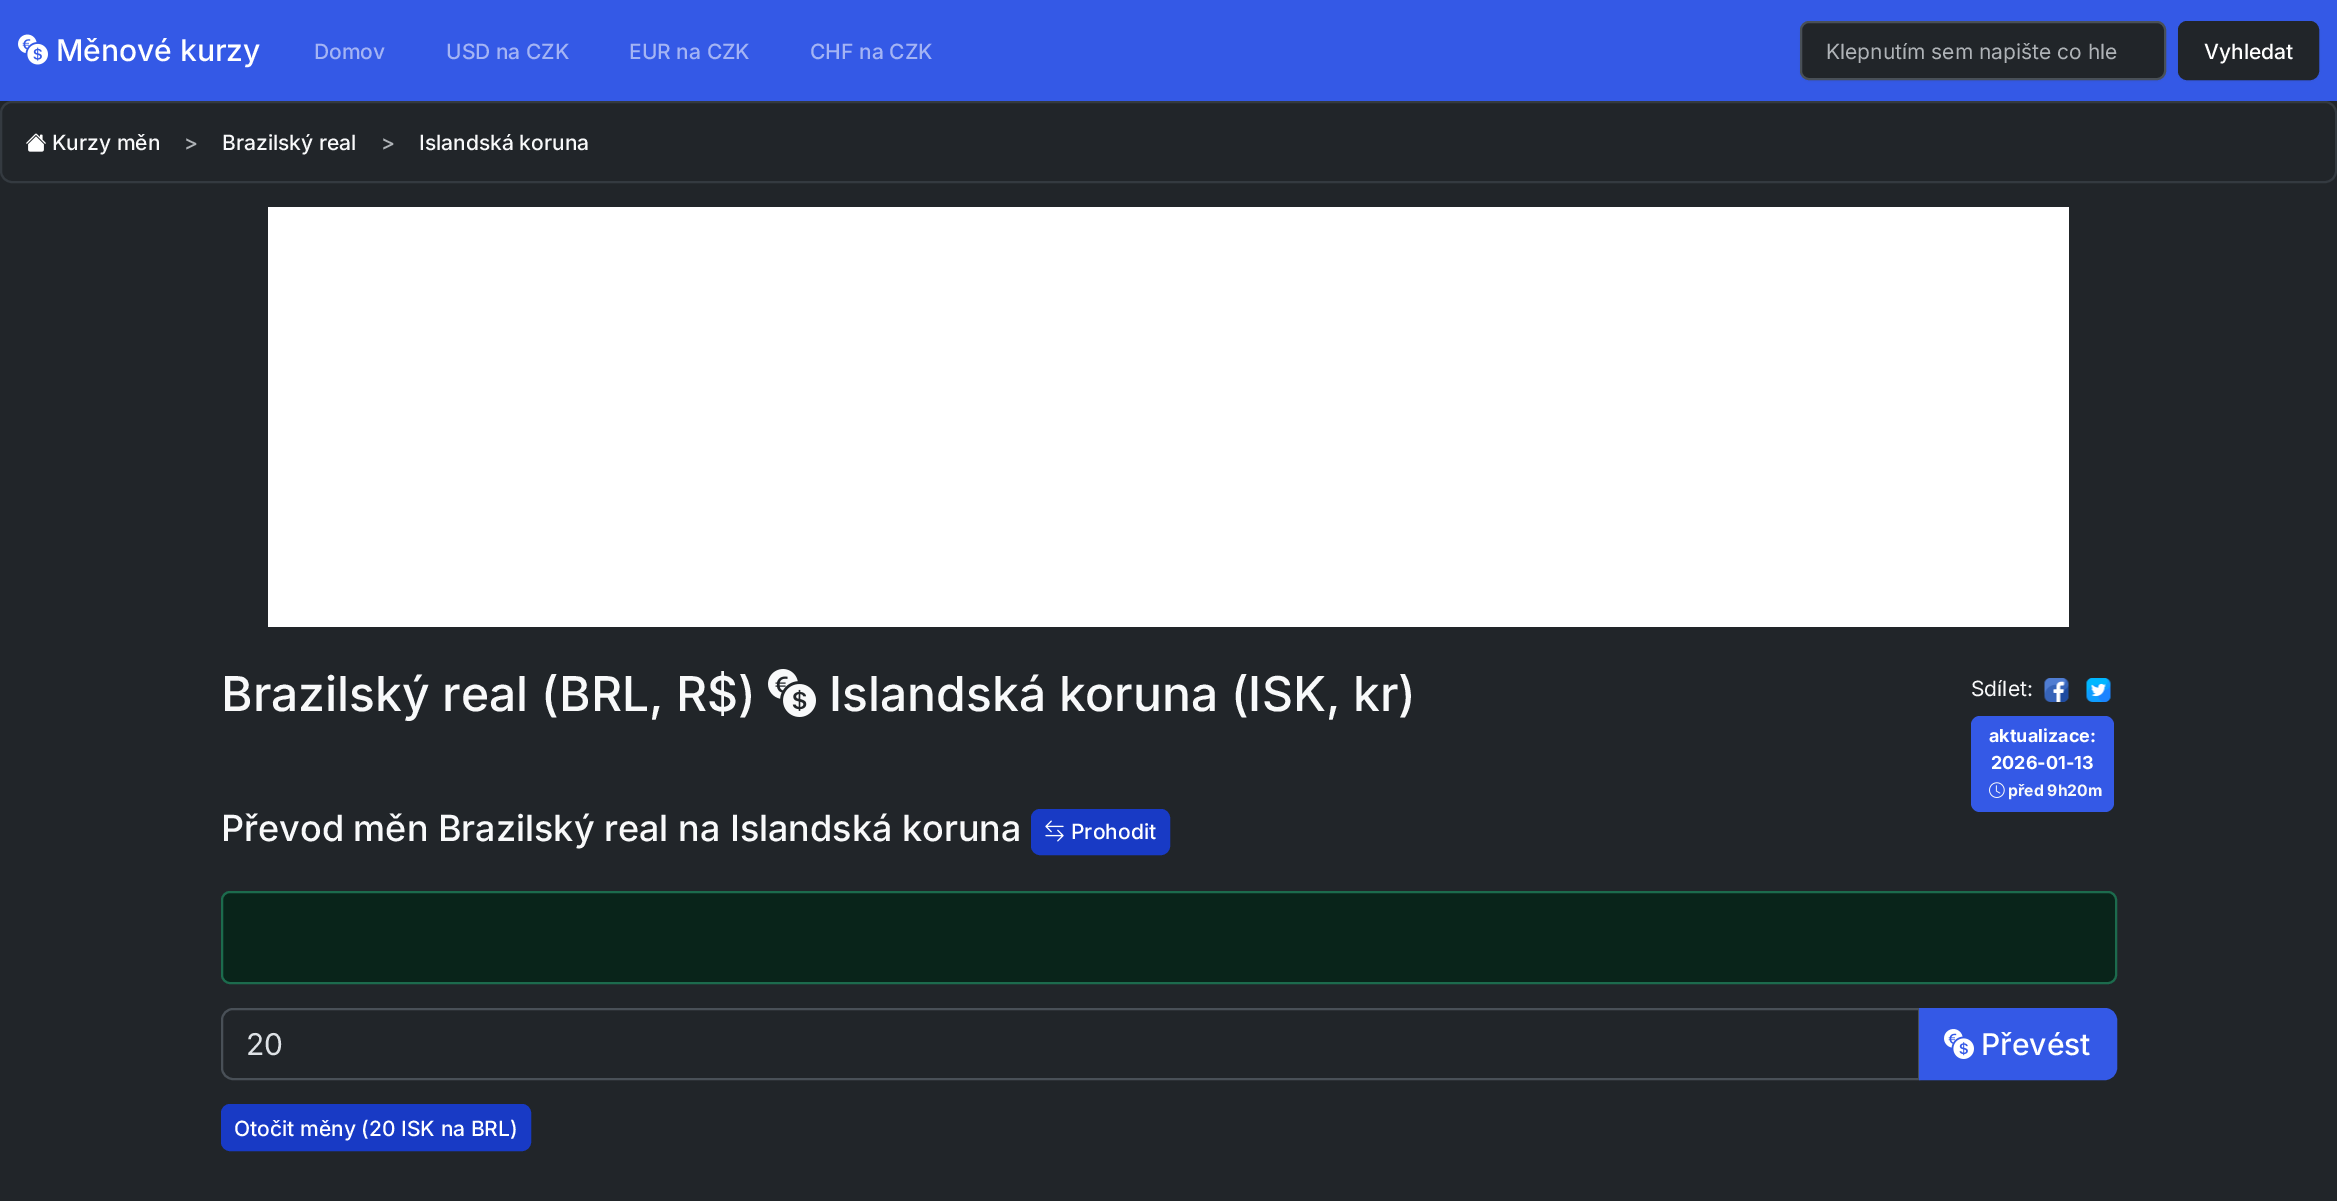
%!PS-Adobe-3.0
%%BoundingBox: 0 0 2337 1201
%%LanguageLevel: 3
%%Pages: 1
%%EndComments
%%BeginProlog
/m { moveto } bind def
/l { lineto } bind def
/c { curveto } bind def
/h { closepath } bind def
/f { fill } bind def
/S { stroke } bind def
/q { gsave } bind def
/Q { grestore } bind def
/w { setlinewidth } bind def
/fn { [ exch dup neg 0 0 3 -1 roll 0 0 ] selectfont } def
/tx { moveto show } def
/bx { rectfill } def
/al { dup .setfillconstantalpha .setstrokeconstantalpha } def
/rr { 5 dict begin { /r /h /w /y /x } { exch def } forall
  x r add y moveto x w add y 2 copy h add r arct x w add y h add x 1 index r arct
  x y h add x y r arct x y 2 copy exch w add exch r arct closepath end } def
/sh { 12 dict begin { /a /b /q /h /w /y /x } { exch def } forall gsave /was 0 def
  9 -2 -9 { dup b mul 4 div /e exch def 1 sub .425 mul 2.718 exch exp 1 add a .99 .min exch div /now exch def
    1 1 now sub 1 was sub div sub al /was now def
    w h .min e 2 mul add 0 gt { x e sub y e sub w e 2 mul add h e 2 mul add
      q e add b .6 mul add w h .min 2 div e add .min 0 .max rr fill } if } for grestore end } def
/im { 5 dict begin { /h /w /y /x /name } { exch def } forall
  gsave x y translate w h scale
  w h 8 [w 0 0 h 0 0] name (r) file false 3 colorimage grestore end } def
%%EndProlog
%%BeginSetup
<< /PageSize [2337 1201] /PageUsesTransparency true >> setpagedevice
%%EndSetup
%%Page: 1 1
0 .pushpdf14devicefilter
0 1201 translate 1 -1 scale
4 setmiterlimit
0.129 0.145 0.161 setrgbcolor
0 0 2337 1201 bx
0.204 0.349 0.902 setrgbcolor
0 0 2337 101 bx
(image0.raw) 18 34 30 31 im
/Inter-Medium 30 fn
1 setgray
(Měnové kurzy) 56 61 tx
/Inter-Medium 21 fn
0.643 0.706 0.957 setrgbcolor
(Domov) 314 59 tx
(USD na CZK) 446 59 tx
(EUR na CZK) 629 59 tx
(CHF na CZK) 810 59 tx
0 setgray
1800 23 366 58 9 1.5 0.05 sh
0.129 0.145 0.161 setrgbcolor
1801 22 364 57 8 rr q f Q
0.286 0.314 0.341 setrgbcolor
2 w
S
q
1826 38 294 25 rectclip
/Inter-Regular 21 fn
0.686 0.702 0.718 setrgbcolor
(Klepnutím sem napište co hle) 1826 59 tx
Q
0 setgray
2178 23 141 58 9 1.5 0.05 sh
0.129 0.145 0.161 setrgbcolor
2179 22 139 57 8 rr q f Q
S
1 setgray
(Vyhledat) 2204 59 tx
0.204 0.227 0.251 setrgbcolor
1 102 2335 80 11 rr S
(image1.raw) 26 133 20 19 im
0.973 0.976 0.98 setrgbcolor
(Kurzy měn) 52 150 tx
0.686 0.702 0.718 setrgbcolor
(>) 184 150 tx
0.973 0.976 0.98 setrgbcolor
(Brazilský real) 222 150 tx
0.686 0.702 0.718 setrgbcolor
(>) 381 150 tx
0.973 0.976 0.98 setrgbcolor
(Islandská koruna) 419 150 tx
1 setgray
268 207 1801 420 bx
/Inter-Medium 48 fn
0.973 0.976 0.98 setrgbcolor
(Brazilský real \(BRL, R$\)) 221 711 tx
(image2.raw) 768 669 48 48 im
(Islandská koruna \(ISK, kr\)) 829 711 tx
/Inter-Regular 21 fn
(Sdílet:) 1971 696 tx
(image3.raw) 2044 678 25 24 im
(image4.raw) 2086 678 25 24 im
0.204 0.349 0.902 setrgbcolor
1971 716 143 96 9 rr f
/Inter-Bold 18 fn
1 setgray
(aktualizace:) 1989 742 tx
(2026-01-13) 1991 769 tx
(image5.raw) 1989 782 16 16 im
/Inter-Bold 15.75 fn
0.973 0.976 0.98 setrgbcolor
(před 9h20m) 2008 796 tx
/Inter-Medium 36 fn
(Převod měn Brazilský real na Islandská koruna) 221 841 tx
0.094 0.227 0.773 setrgbcolor
1032 810 137 44 8 rr q f Q
S
(image6.raw) 1045 820 19 22 im
/Inter-Medium 21 fn
1 setgray
(Prohodit) 1071 839 tx
0.035 0.141 0.102 setrgbcolor
222 892 1894 91 8 rr q f Q
0.11 0.42 0.302 setrgbcolor
S
0.286 0.314 0.341 setrgbcolor
233 1009 m 1919 1009 l 1919 1079 l 233 1079 l 227 1079 222 1074 222 1068 c 222 1020 l 222 1014 227 1009 233 1009 c h S
/Inter-Regular 30 fn
0.871 0.886 0.902 setrgbcolor
(20) 246 1055 tx
0.204 0.349 0.902 setrgbcolor
1920 1009 m 2105 1009 l 2111 1009 2116 1014 2116 1020 c 2116 1068 l 2116 1074 2111 1079 2105 1079 c 1920 1079 l h q f Q
S
(image7.raw) 1944 1029 30 30 im
/Inter-Medium 30 fn
1 setgray
(Převést) 1981 1055 tx
0.094 0.227 0.773 setrgbcolor
222 1105 308 45 8 rr q f Q
S
/Inter-Medium 21 fn
1 setgray
(Otočit měny \(20 ISK na BRL\)) 234 1136 tx
.poppdf14devicefilter showpage
%%EOF
